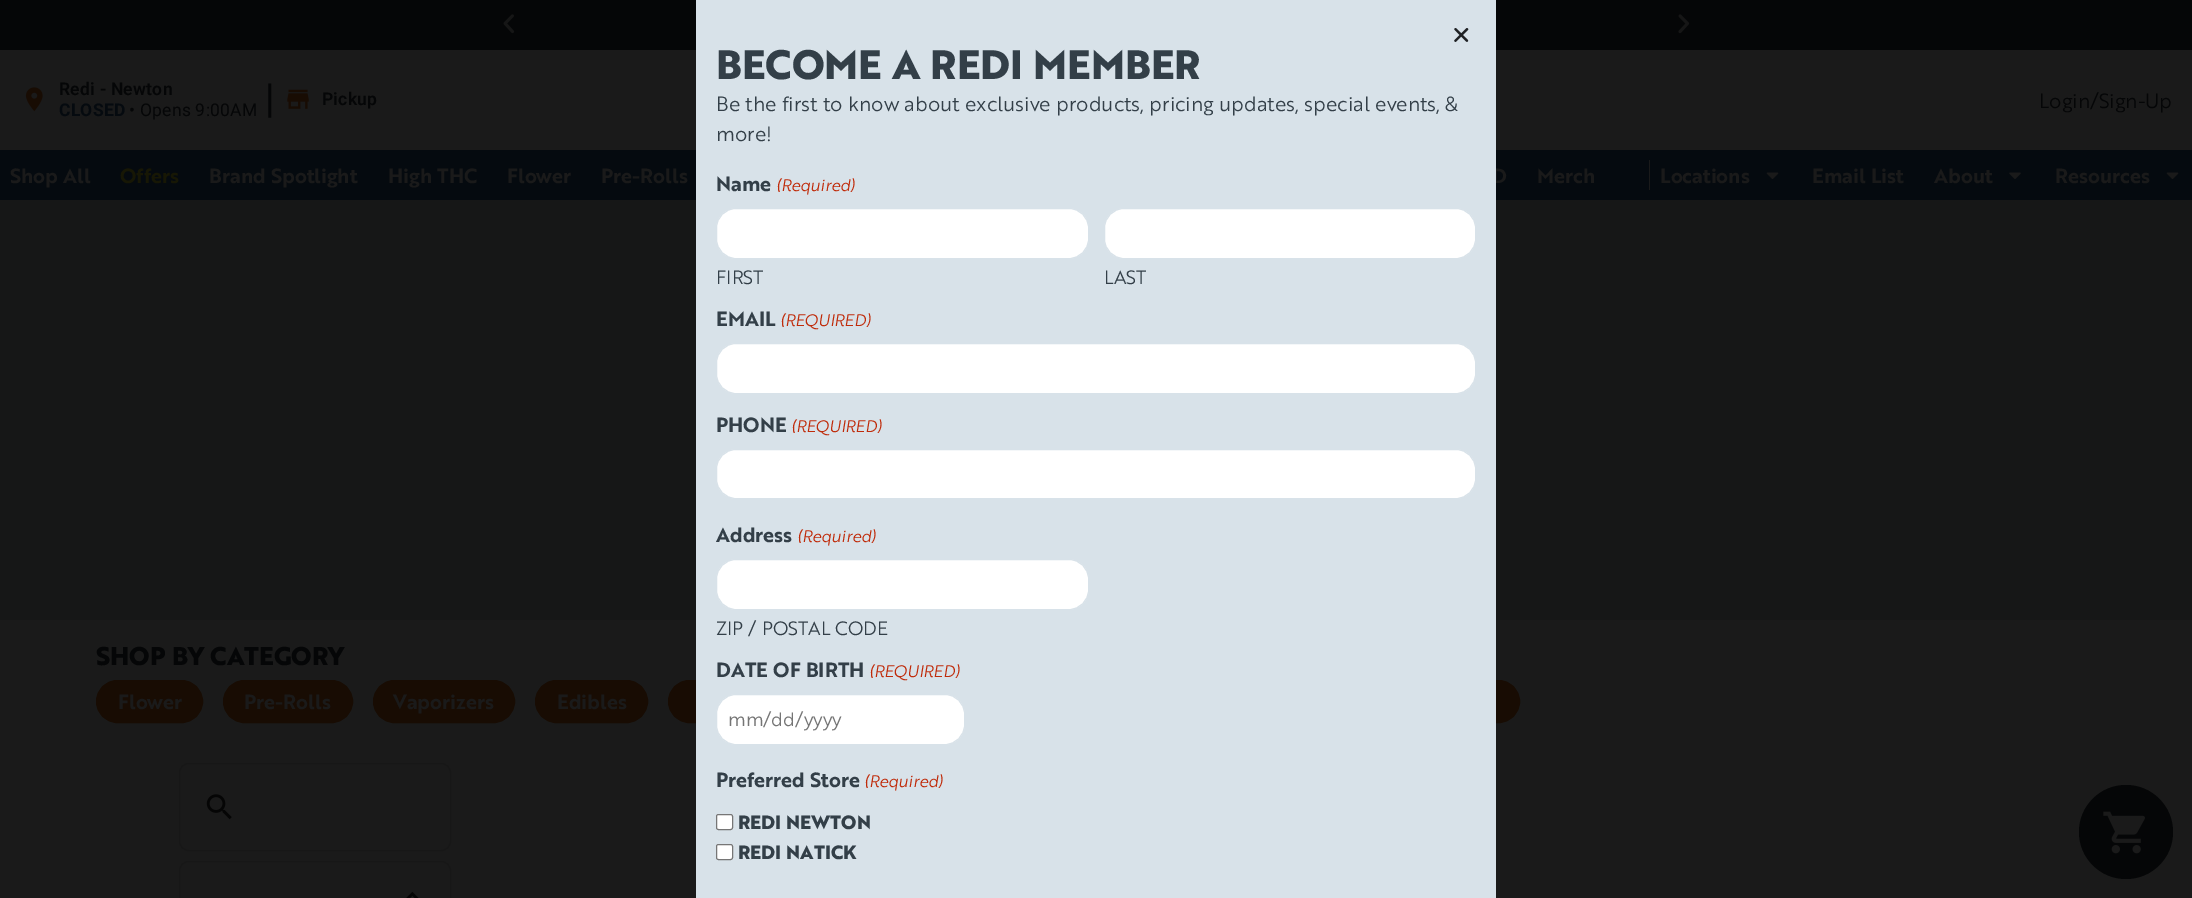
%!PS-Adobe-3.0
%%BoundingBox: 0 0 2192 898
%%LanguageLevel: 3
%%Pages: 1
%%EndComments
%%BeginProlog
/m { moveto } bind def
/f { fill } bind def
/S { stroke } bind def
/q { gsave } bind def
/Q { grestore } bind def
/fn { [ exch dup neg 0 0 3 -1 roll 0 0 ] selectfont } def
/tx { moveto show } def
/bx { rectfill } def
/ci { newpath 0 360 arc closepath } def
/rr { 5 dict begin { /r /h /w /y /x } { exch def } forall
  x r add y moveto x w add y 2 copy h add r arct x w add y h add x 1 index r arct
  x y h add x y r arct x y 2 copy exch w add exch r arct closepath end } def
/im { 5 dict begin { /h /w /y /x /name } { exch def } forall
  gsave x y translate w h scale
  w h 8 [w 0 0 h 0 0] name (r) file false 3 colorimage grestore end } def
%%EndProlog
%%BeginSetup
<< /PageSize [2192 898] >> setpagedevice
%%EndSetup
%%Page: 1 1
0 898 translate 1 -1 scale
4 setmiterlimit
0.102 setgray
0 0 2192 898 bx
0.02 0.024 0.027 setrgbcolor
0 0 2192 50 bx
0.02 0.039 0.059 setrgbcolor
0 150 2192 50 bx
/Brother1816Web-Bold 20 fn
0.102 setgray
(D) 1492 183 tx
0.086 0.09 0.09 setrgbcolor
0 200 2192 420 bx
0.094 0.047 0.012 setrgbcolor
668.5 680.5 166 42 21 rr q f Q
S
1419.5 680.5 100 42 21 rr q f Q
S
0.847 0.886 0.914 setrgbcolor
696 0 800 898 bx
(image0.raw) 1454 28 15 14 im
/Brother1816Web-ExtraBold 40 fn
0.2 0.247 0.282 setrgbcolor
(BECOME A REDI MEMBER) 716 79 tx
/Brother1816Web-Regular 20 fn
(Be the first to know about exclusive products, pricing updates, special events, &) 716 111 tx
(more!) 716 141 tx
/Brother1816Web-Bold 20 fn
(Name) 716 191 tx
/Brother1816Web-Italic 16.25 fn
0.753 0.169 0.039 setrgbcolor
(\(Required\)) 776 191 tx
1 setgray
716.5 208.5 372 50 19.5 rr q f Q
0.847 0.886 0.914 setrgbcolor
S
/Brother1816Web-Regular 18.75 fn
0.2 0.247 0.282 setrgbcolor
(FIRST) 716 284 tx
1 setgray
1104.5 208.5 371 50 19.5 rr q f Q
0.847 0.886 0.914 setrgbcolor
S
0.2 0.247 0.282 setrgbcolor
(LAST) 1104 284 tx
/Brother1816Web-Bold 20 fn
(EMAIL) 716 326 tx
/Brother1816Web-Italic 16.25 fn
0.753 0.169 0.039 setrgbcolor
(\(REQUIRED\)) 780 326 tx
1 setgray
716.5 343.5 759 50 19.5 rr q f Q
0.847 0.886 0.914 setrgbcolor
S
/Brother1816Web-Bold 20 fn
0.2 0.247 0.282 setrgbcolor
(PHONE) 716 432 tx
/Brother1816Web-Italic 16.25 fn
0.753 0.169 0.039 setrgbcolor
(\(REQUIRED\)) 791 432 tx
1 setgray
716.5 449.5 759 49 19.5 rr q f Q
0.847 0.886 0.914 setrgbcolor
S
/Brother1816Web-Bold 20 fn
0.2 0.247 0.282 setrgbcolor
(Address) 716 542 tx
/Brother1816Web-Italic 16.25 fn
0.753 0.169 0.039 setrgbcolor
(\(Required\)) 797 542 tx
1 setgray
716.5 559.5 372 50 19.5 rr q f Q
0.847 0.886 0.914 setrgbcolor
S
/Brother1816Web-Regular 18.75 fn
0.2 0.247 0.282 setrgbcolor
(ZIP / POSTAL CODE) 716 635 tx
/Brother1816Web-Bold 20 fn
(DATE OF BIRTH) 716 677 tx
/Brother1816Web-Italic 16.25 fn
0.753 0.169 0.039 setrgbcolor
(\(REQUIRED\)) 869 677 tx
1 setgray
716.5 694.5 248 50 19.5 rr q f Q
0.847 0.886 0.914 setrgbcolor
S
/Brother1816Web-Regular 18.75 fn
0.459 setgray
(mm/dd/yyyy) 728 726 tx
/Brother1816Web-Bold 20 fn
0.2 0.247 0.282 setrgbcolor
(Preferred Store) 716 787 tx
/Brother1816Web-Italic 16.25 fn
0.753 0.169 0.039 setrgbcolor
(\(Required\)) 864 787 tx
1 setgray
716.5 814.5 16 15 2 rr q f Q
0.463 setgray
S
/Brother1816Web-ExtraBold 18.75 fn
0.2 0.247 0.282 setrgbcolor
(REDI NEWTON) 738 829 tx
1 setgray
716.5 844.5 16 15 2 rr q f Q
0.463 setgray
S
0.2 0.247 0.282 setrgbcolor
(REDI NATICK) 738 859 tx
(image1.raw) 503 14 12 20 im
(image2.raw) 1678 14 12 20 im
(image3.raw) 25 87 18 25 im
/Roboto-SemiBold 17.5 fn
0.02 0.024 0.027 setrgbcolor
59 95 m 0.25 0 (Redi - Newton) ashow
/Roboto-Bold 17.5 fn
0.02 0.039 0.059 setrgbcolor
59 116 m 0.25 0 (CLOSED) ashow
/Roboto-Regular 17.5 fn
0.02 0.024 0.027 setrgbcolor
129 116 m 0.25 0 (• Opens 9:00AM) ashow
/Brother1816Web-Regular 40 fn
(|) 264 115 tx
(image4.raw) 287 89 22 20 im
/Roboto-SemiBold 17.5 fn
322 105 m 0.25 0 (Pickup) ashow
/Brother1816Web-Regular 20 fn
(Login/Sign-Up) 2039 108 tx
/Brother1816Web-Bold 20 fn
0.102 setgray
(Shop All) 10 183 tx
0.09 0.09 0.02 setrgbcolor
(Offers) 120 183 tx
0.102 setgray
(Brand Spotlight) 209 183 tx
(High THC) 388 183 tx
(Flower) 507 183 tx
(Pre-Rolls) 601 183 tx
(Merch) 1537 183 tx
1649 160 1 30 bx
(Locations) 1660 183 tx
(image5.raw) 1766 172 13 7 im
(Email List) 1812 183 tx
(About) 1934 183 tx
(image6.raw) 2009 172 12 7 im
(Resources) 2055 183 tx
(image5.raw) 2166 172 13 7 im
/Brother1816Web-ExtraBold 25 fn
0.02 0.024 0.027 setrgbcolor
(SHOP BY CATEGORY) 96 665 tx
0.094 0.047 0.012 setrgbcolor
96.5 680.5 106 42 21 rr q f Q
S
/Brother1816Web-Bold 20 fn
0.102 setgray
(Flower) 118 709 tx
0.094 0.047 0.012 setrgbcolor
223.5 680.5 129 42 21 rr q f Q
S
0.102 setgray
(Pre-Rolls) 244 709 tx
0.094 0.047 0.012 setrgbcolor
373.5 680.5 141 42 21 rr q f Q
S
0.102 setgray
(Vaporizers) 393 709 tx
0.094 0.047 0.012 setrgbcolor
535.5 680.5 112 42 21 rr q f Q
S
0.102 setgray
(Edibles) 557 709 tx
0.09 setgray
179.5 763.5 271 87 9.5 rr S
(image7.raw) 206 794 26 26 im
179.5 861.5 271 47 9.5 rr S
(image8.raw) 406 891 13 7 im
0.02 0.024 0.027 setrgbcolor
2126 832 47 ci f
(image9.raw) 2103 811 42 43 im
showpage
%%EOF
